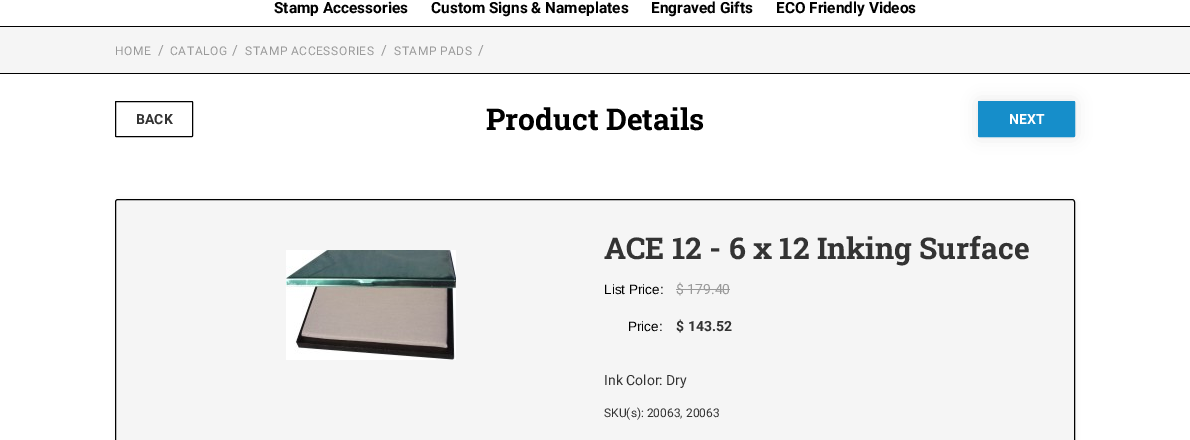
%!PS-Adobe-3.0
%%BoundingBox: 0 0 1190 440
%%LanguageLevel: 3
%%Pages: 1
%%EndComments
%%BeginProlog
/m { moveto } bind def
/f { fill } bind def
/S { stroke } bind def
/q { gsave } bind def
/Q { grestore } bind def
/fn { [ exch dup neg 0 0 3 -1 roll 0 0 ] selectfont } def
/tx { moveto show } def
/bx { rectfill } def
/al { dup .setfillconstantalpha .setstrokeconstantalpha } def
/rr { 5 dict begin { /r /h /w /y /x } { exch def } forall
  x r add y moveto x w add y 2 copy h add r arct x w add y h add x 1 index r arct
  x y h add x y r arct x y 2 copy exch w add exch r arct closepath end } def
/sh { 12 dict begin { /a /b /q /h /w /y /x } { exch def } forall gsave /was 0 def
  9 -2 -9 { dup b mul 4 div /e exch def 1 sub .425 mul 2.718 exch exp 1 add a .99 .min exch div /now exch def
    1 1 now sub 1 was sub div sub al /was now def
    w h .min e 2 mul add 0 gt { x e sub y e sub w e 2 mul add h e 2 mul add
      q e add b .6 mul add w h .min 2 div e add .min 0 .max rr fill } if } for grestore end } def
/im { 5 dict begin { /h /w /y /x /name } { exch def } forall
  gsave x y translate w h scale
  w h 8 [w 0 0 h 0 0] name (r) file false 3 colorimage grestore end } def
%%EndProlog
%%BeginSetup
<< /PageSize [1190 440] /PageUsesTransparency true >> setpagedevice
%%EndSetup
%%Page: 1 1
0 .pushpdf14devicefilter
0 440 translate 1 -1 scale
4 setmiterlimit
1 setgray
0 0 1190 440 bx
/Roboto-Bold 15.4 fn
0 setgray
(Stamp Accessories) 274 13 tx
(Custom Signs & Nameplates) 431 13 tx
(Engraved Gifts) 651 13 tx
(ECO Friendly Videos) 776 13 tx
0.961 setgray
0 27 1190 46 bx
0 setgray
0 26 1190 1 bx
0 73 1190 1 bx
/Roboto-Regular 12 fn
0.6 setgray
115 55 m 0.6 0 (HOME) ashow
/Roboto-Regular 14 fn
(/) 158 55 tx
/Roboto-Regular 12 fn
170 55 m 0.6 0 (CATALOG) ashow
/Roboto-Regular 14 fn
(/) 232 55 tx
/Roboto-Regular 12 fn
245 55 m -1 0 32 0.6 0 (STAMP ACCESSORIES) awidthshow
/Roboto-Regular 14 fn
(/) 381 55 tx
/Roboto-Regular 12 fn
394 55 m -1 0 32 0.6 0 (STAMP PADS) awidthshow
/Roboto-Regular 14 fn
(/) 478 55 tx
0 setgray
115.5 101.5 77 35 0.5 rr S
/Roboto-Bold 14 fn
0.2 setgray
(BACK) 136 124 tx
/RobotoSlab-Bold 30 fn
0 setgray
(Product Details) 486 130 tx
978 101 97 36 1 8 0.1 sh
0.086 0.557 0.792 setrgbcolor
978.5 101.5 96 35 0.5 rr q f Q
S
/Roboto-Bold 14 fn
1 setgray
(NEXT) 1009 124 tx
0 setgray
116 200 960 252 3 3 0.05 sh
0.961 setgray
115.5 199.5 959 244 2.5 rr q f Q
0 setgray
S
(image0.raw) 286 250 170 110 im
/RobotoSlab-Bold 30 fn
0.2 setgray
(ACE 12 - 6 x 12 Inking Surface) 604 259 tx
/LiberationSans-Regular 13.5 fn
0 setgray
(List Price:) 604 294 tx
/Roboto-Regular 14 fn
0.6 setgray
($ 179.40) 676 294 tx
676 289 54 1 bx
/LiberationSans-Regular 13.5 fn
0 setgray
(Price:) 628 331 tx
/Roboto-Bold 14 fn
0.2 setgray
($ 143.52) 676 331 tx
/Roboto-Regular 14 fn
(Ink Color: Dry) 604 385 tx
/Roboto-Regular 12 fn
(SKU\(s\): 20063, 20063) 604 417 tx
.poppdf14devicefilter showpage
%%EOF
